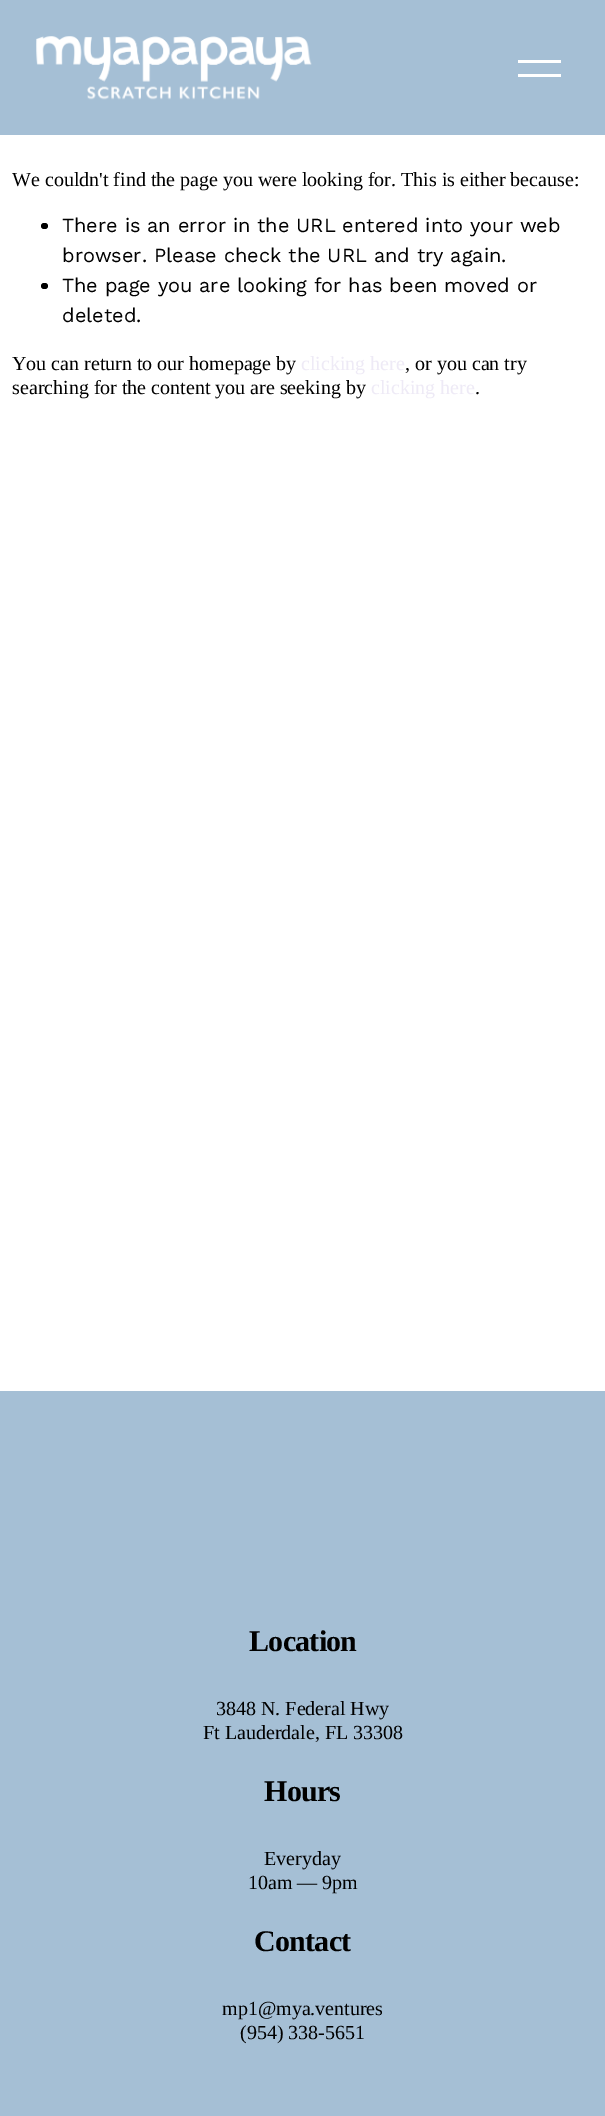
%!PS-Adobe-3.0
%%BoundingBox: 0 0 605 2116
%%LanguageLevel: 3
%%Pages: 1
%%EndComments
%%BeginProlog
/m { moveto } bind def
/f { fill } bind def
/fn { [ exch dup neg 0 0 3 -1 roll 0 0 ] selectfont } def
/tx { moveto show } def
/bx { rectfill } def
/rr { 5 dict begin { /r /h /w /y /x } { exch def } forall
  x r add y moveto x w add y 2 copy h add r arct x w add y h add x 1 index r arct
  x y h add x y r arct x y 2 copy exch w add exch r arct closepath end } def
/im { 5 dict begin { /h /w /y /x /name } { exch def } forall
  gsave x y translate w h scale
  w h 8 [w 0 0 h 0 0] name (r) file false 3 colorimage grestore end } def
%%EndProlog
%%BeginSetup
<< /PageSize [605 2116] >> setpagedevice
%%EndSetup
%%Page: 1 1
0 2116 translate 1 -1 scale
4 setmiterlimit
1 setgray
0 0 605 2116 bx
0.647 0.749 0.835 setrgbcolor
0 0 605 135 bx
(image0.raw) 36 36 276 64 im
1 setgray
518 60 43 3 bx
518 74 43 3 bx
/LiberationSerif-Regular 20 fn
0 setgray
(We couldn't find the page you were looking for. This is either because:) 12 186 tx
41 223 7 6 3 rr f
/WorkSans-Regular 20 fn
(There is an error in the URL entered into your web) 62 232 tx
(browser. Please check the URL and try again.) 62 262 tx
41 283 7 6 3 rr f
(The page you are looking for has been moved or) 62 292 tx
(deleted.) 62 322 tx
/LiberationSerif-Regular 20 fn
(You can return to our homepage by) 12 370 tx
0.933 0.918 0.965 setrgbcolor
(clicking here) 301 370 tx
0 setgray
(, or you can try) 405 370 tx
(searching for the content you are seeking by) 12 394 tx
0.933 0.918 0.965 setrgbcolor
(clicking here) 371 394 tx
0 setgray
(.) 475 394 tx
0.647 0.749 0.835 setrgbcolor
0 1391 605 725 bx
/LiberationSerif-Bold 30 fn
0 setgray
249 1651 m -0.75 0 (Location) ashow
/LiberationSerif-Regular 20 fn
(3848 N. Federal Hwy) 216 1715 tx
(Ft Lauderdale, FL 33308) 203 1739 tx
/LiberationSerif-Bold 30 fn
264 1801 m -0.75 0 (Hours) ashow
/LiberationSerif-Regular 20 fn
(Everyday) 264 1865 tx
(10am — 9pm) 248 1889 tx
/LiberationSerif-Bold 30 fn
254 1951 m -0.75 0 (Contact) ashow
/LiberationSerif-Regular 20 fn
(mp1@mya.ventures) 222 2015 tx
(\(954\) 338-5651) 240 2039 tx
showpage
%%EOF
